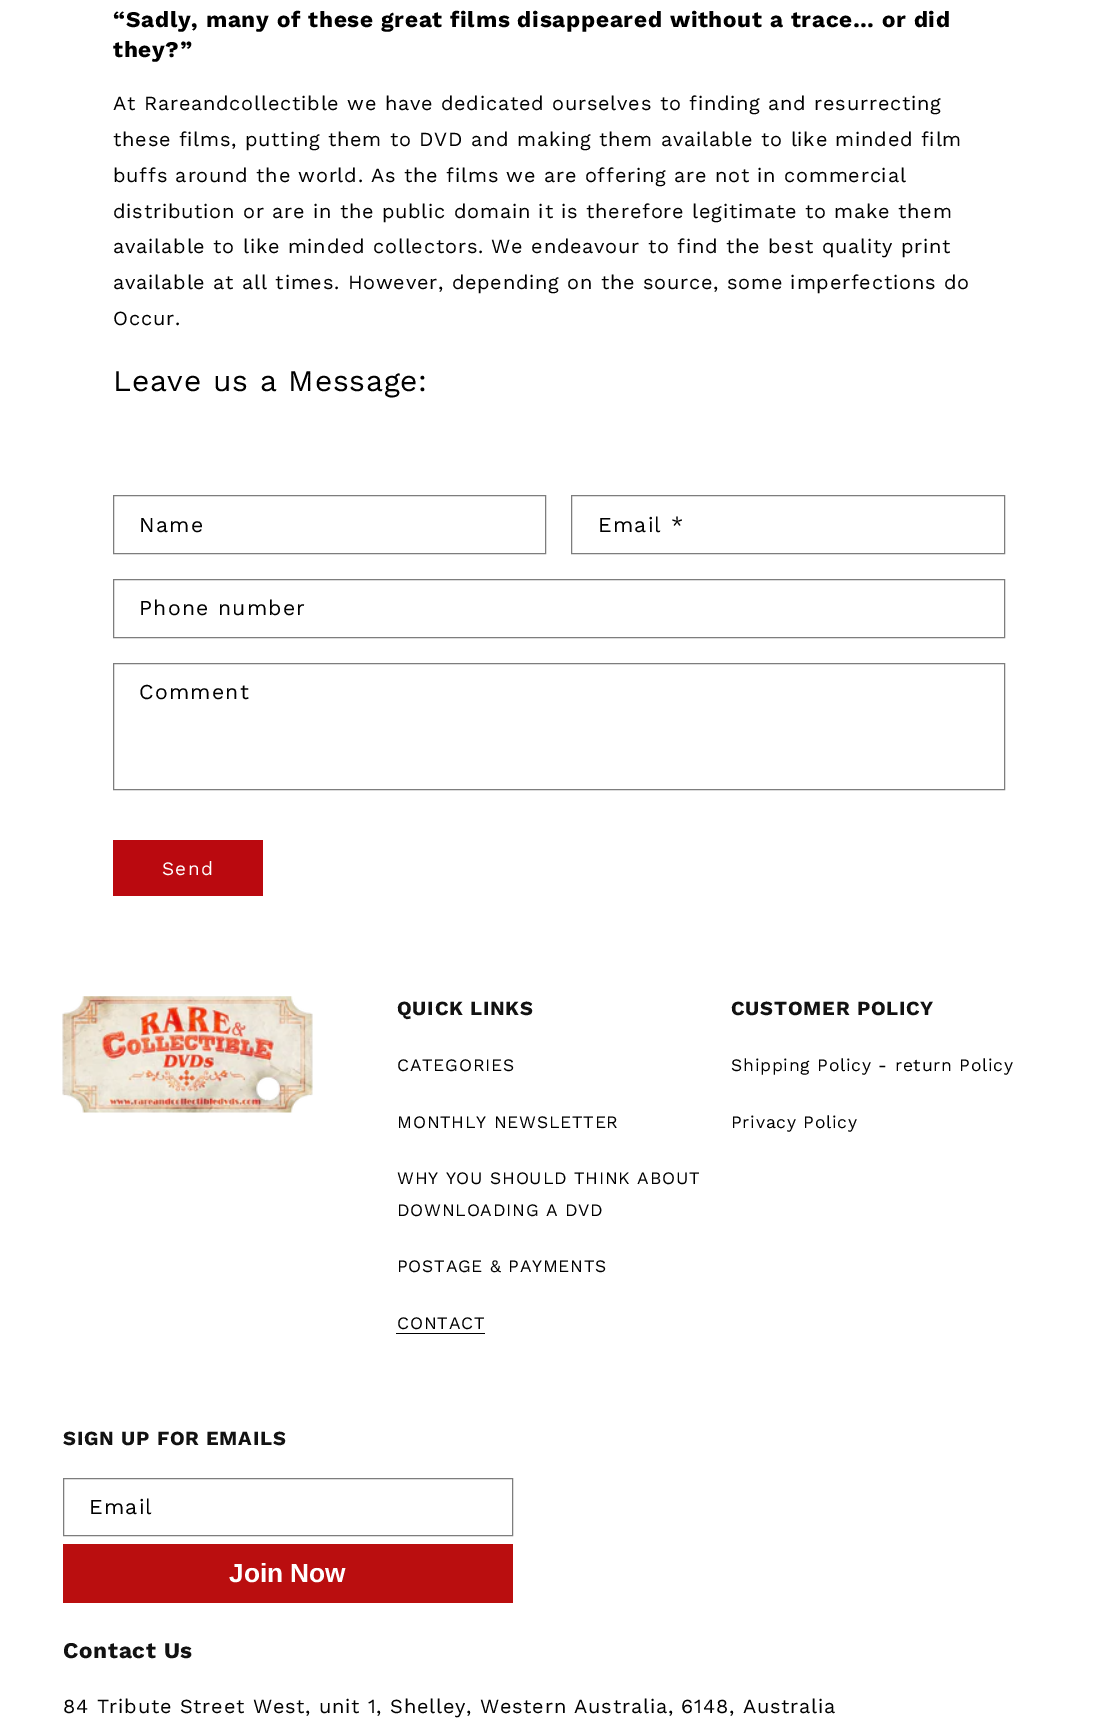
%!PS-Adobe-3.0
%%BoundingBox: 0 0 1117 1724
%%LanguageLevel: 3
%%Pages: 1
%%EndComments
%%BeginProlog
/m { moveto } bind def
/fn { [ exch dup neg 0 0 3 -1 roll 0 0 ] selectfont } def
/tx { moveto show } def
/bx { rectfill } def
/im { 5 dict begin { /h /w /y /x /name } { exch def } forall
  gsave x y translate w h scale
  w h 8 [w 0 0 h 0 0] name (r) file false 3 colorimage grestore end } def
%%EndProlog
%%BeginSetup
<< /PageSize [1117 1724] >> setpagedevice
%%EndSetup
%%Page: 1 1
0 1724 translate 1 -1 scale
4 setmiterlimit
1 setgray
0 0 1117 1724 bx
/WorkSans-Bold 22.5 fn
0 setgray
113 27 m 0.75 0 (“Sadly, many of these great films disappeared without a trace… or did) ashow
113 57 m 0.75 0 (they?”) ashow
/WorkSans-Regular 20 fn
113 110 m 0.75 0 (At Rareandcollectible we have dedicated ourselves to finding and resurrecting) ashow
113 146 m 0.75 0 (these films, putting them to DVD and making them available to like minded film) ashow
113 182 m 0.75 0 (buffs around the world. As the films we are offering are not in commercial) ashow
113 218 m 0.75 0 (distribution or are in the public domain it is therefore legitimate to make them) ashow
113 253 m 0.75 0 (available to like minded collectors. We endeavour to find the best quality print) ashow
113 289 m 0.75 0 (available at all times. However, depending on the source, some imperfections do) ashow
113 325 m 0.75 0 (Occur.) ashow
/WorkSans-Regular 30 fn
113 391 m 0.75 0 (Leave us a Message:) ashow
0.49 setgray
113.5 495.5 432 58 rectstroke
/WorkSans-Regular 21.25 fn
0 setgray
139 532 m 1.25 0 (Name) ashow
0.49 setgray
571.5 495.5 433 58 rectstroke
0 setgray
598 532 m 1.25 0 (Email *) ashow
0.49 setgray
113.5 579.5 891 58 rectstroke
0 setgray
139 615 m 1.25 0 (Phone number) ashow
0.49 setgray
113.5 663.5 891 126 rectstroke
0 setgray
139 699 m 1.25 0 (Comment) ashow
0.729 0.035 0.059 setrgbcolor
113 840 150 56 bx
/WorkSans-Regular 19 fn
1 setgray
162 875 m 1.25 0 (Send) ashow
(image0.raw) 62 996 251 117 im
/WorkSans-Bold 20 fn
0.071 setgray
397 1015 m 0.75 0 (QUICK LINKS) ashow
/WorkSans-Regular 17.5 fn
0 setgray
397 1071 m 0.75 0 (CATEGORIES) ashow
397 1128 m 0.75 0 (MONTHLY NEWSLETTER) ashow
397 1184 m 0.75 0 (WHY YOU SHOULD THINK ABOUT) ashow
397 1216 m 0.75 0 (DOWNLOADING A DVD) ashow
397 1272 m 0.75 0 (POSTAGE & PAYMENTS) ashow
397 1329 m 0.75 0 (CONTACT) ashow
396 1333 89 1 bx
/WorkSans-Bold 20 fn
0.071 setgray
731 1015 m 0.75 0 (CUSTOMER POLICY) ashow
/WorkSans-Regular 17.5 fn
0 setgray
731 1071 m 0.75 0 (Shipping Policy - return Policy) ashow
731 1128 m 0.75 0 (Privacy Policy) ashow
/WorkSans-Bold 20 fn
0.071 setgray
63 1445 m 0.75 0 (SIGN UP FOR EMAILS) ashow
0.49 setgray
63.5 1478.5 449 57 rectstroke
/WorkSans-Regular 21.25 fn
0 setgray
89 1514 m 1.25 0 (Email) ashow
0.729 0.055 0.059 setrgbcolor
63 1544 450 59 bx
/LiberationSans-Bold 26.25 fn
1 setgray
(Join Now) 229 1582 tx
/WorkSans-Bold 22.5 fn
0.071 setgray
63 1658 m 0.75 0 (Contact Us) ashow
/WorkSans-Regular 20 fn
0 setgray
63 1713 m 0.75 0 (84 Tribute Street West, unit 1, Shelley, Western Australia, 6148, Australia) ashow
showpage
%%EOF
